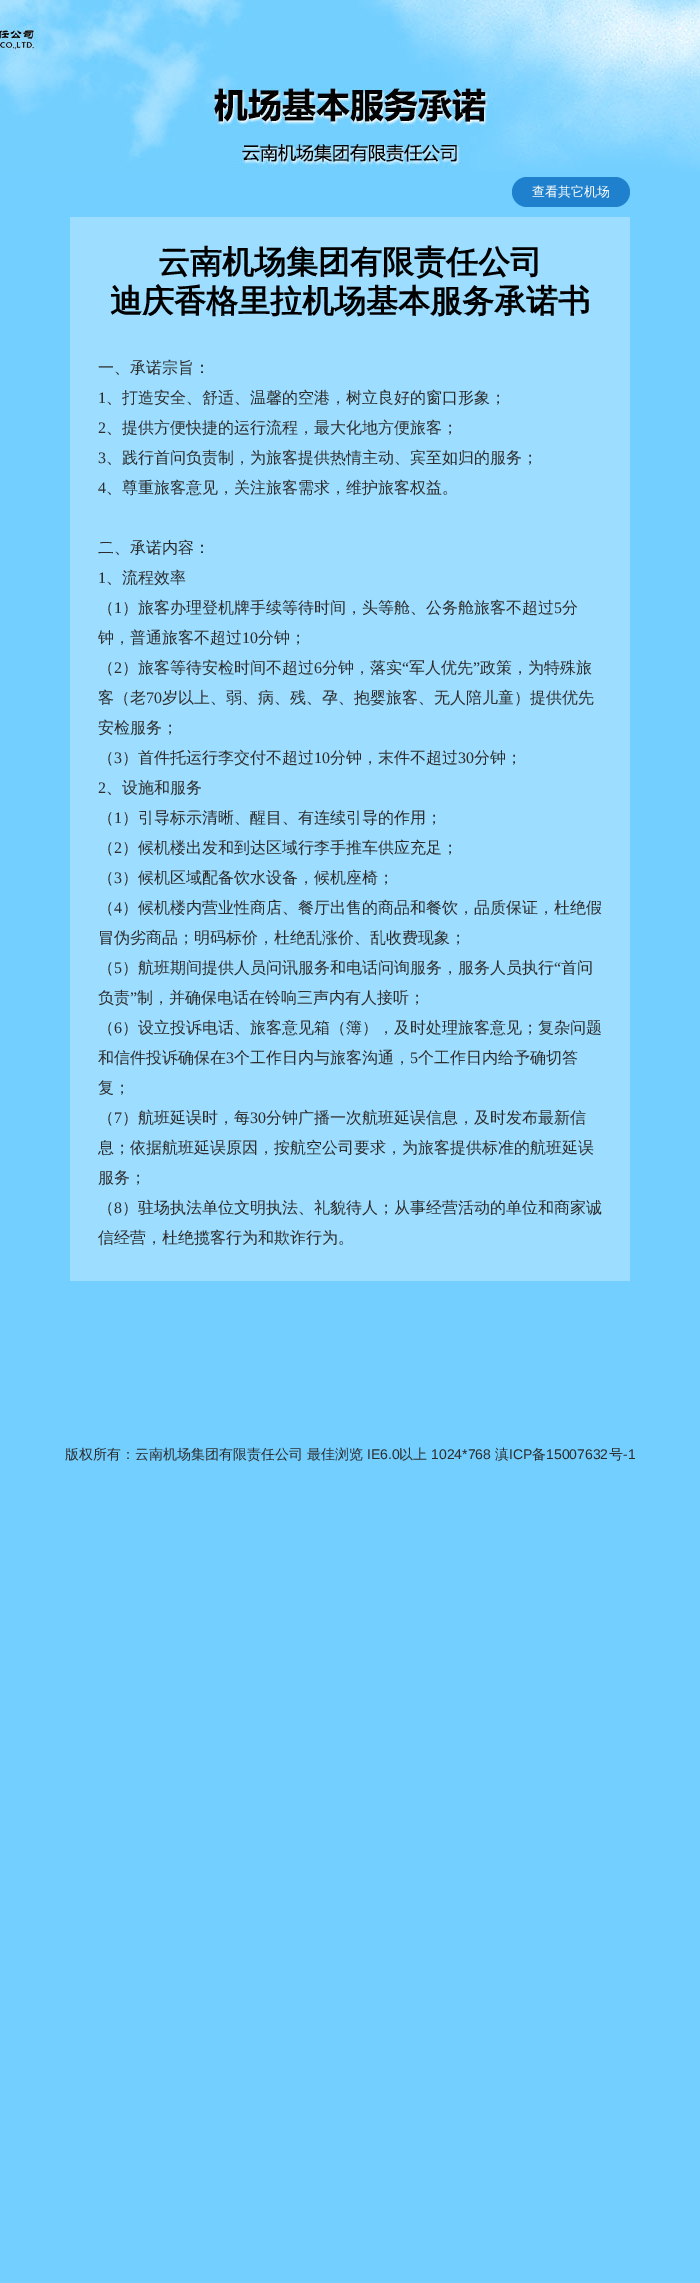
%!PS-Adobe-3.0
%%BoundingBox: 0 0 700 2283
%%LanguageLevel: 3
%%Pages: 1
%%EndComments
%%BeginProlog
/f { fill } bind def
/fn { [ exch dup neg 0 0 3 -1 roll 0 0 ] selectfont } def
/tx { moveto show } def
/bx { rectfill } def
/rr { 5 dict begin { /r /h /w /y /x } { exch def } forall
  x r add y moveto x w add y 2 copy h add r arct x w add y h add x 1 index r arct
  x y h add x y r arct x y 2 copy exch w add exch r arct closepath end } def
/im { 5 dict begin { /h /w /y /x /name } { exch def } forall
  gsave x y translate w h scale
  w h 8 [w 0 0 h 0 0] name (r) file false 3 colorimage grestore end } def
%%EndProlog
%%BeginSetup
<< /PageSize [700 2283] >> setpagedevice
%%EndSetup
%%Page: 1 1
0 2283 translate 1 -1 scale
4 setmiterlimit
0.451 0.812 1 setrgbcolor
0 0 700 2283 bx
(image0.raw) 0 0 700 171 im
0.122 0.506 0.804 setrgbcolor
512 177 118 30 15 rr f
/WenQuanYiZenHei-Medium 13 fn
1 setgray
(查看其它机场) 532 196 tx
0.616 0.867 1 setrgbcolor
70 217 560 1064 bx
/WenQuanYiZenHei-Bold 32 fn
0 setgray
(云南机场集团有限责任公司) 158 273 tx
(迪庆香格里拉机场基本服务承诺书) 110 312 tx
/WenQuanYiZenHei-Medium 16 fn
0.173 setgray
(一、承诺宗旨：) 98 373 tx
/LiberationSerif-Regular 16 fn
(1) 98 403 tx
/WenQuanYiZenHei-Medium 16 fn
(、打造安全、舒适、温馨的空港，树立良好的窗口形象；) 106 403 tx
/LiberationSerif-Regular 16 fn
(2) 98 433 tx
/WenQuanYiZenHei-Medium 16 fn
(、提供方便快捷的运行流程，最大化地方便旅客；) 106 433 tx
/LiberationSerif-Regular 16 fn
(3) 98 463 tx
/WenQuanYiZenHei-Medium 16 fn
(、践行首问负责制，为旅客提供热情主动、宾至如归的服务；) 106 463 tx
/LiberationSerif-Regular 16 fn
(4) 98 493 tx
/WenQuanYiZenHei-Medium 16 fn
(、尊重旅客意见，关注旅客需求，维护旅客权益。) 106 493 tx
(二、承诺内容：) 98 553 tx
/LiberationSerif-Regular 16 fn
(1) 98 583 tx
/WenQuanYiZenHei-Medium 16 fn
(、流程效率) 106 583 tx
(（) 98 613 tx
/LiberationSerif-Regular 16 fn
(1) 114 613 tx
/WenQuanYiZenHei-Medium 16 fn
(）旅客办理登机牌手续等待时间，头等舱、公务舱旅客不超过) 122 613 tx
/LiberationSerif-Regular 16 fn
(5) 554 613 tx
/WenQuanYiZenHei-Medium 16 fn
(分) 562 613 tx
(钟，普通旅客不超过) 98 643 tx
/LiberationSerif-Regular 16 fn
(10) 242 643 tx
/WenQuanYiZenHei-Medium 16 fn
(分钟；) 258 643 tx
(（) 98 673 tx
/LiberationSerif-Regular 16 fn
(2) 114 673 tx
/WenQuanYiZenHei-Medium 16 fn
(）旅客等待安检时间不超过) 122 673 tx
/LiberationSerif-Regular 16 fn
(6) 314 673 tx
/WenQuanYiZenHei-Medium 16 fn
(分钟，落实) 322 673 tx
/LiberationSerif-Regular 16 fn
(“) 402 673 tx
/WenQuanYiZenHei-Medium 16 fn
(军人优先) 409 673 tx
/LiberationSerif-Regular 16 fn
(”) 473 673 tx
/WenQuanYiZenHei-Medium 16 fn
(政策，为特殊旅) 480 673 tx
(客（老) 98 703 tx
/LiberationSerif-Regular 16 fn
(70) 146 703 tx
/WenQuanYiZenHei-Medium 16 fn
(岁以上、弱、病、残、孕、抱婴旅客、无人陪儿童）提供优先) 162 703 tx
(安检服务；) 98 733 tx
(（) 98 763 tx
/LiberationSerif-Regular 16 fn
(3) 114 763 tx
/WenQuanYiZenHei-Medium 16 fn
(）首件托运行李交付不超过) 122 763 tx
/LiberationSerif-Regular 16 fn
(10) 314 763 tx
/WenQuanYiZenHei-Medium 16 fn
(分钟，末件不超过) 330 763 tx
/LiberationSerif-Regular 16 fn
(30) 458 763 tx
/WenQuanYiZenHei-Medium 16 fn
(分钟；) 474 763 tx
/LiberationSerif-Regular 16 fn
(2) 98 793 tx
/WenQuanYiZenHei-Medium 16 fn
(、设施和服务) 106 793 tx
(（) 98 823 tx
/LiberationSerif-Regular 16 fn
(1) 114 823 tx
/WenQuanYiZenHei-Medium 16 fn
(）引导标示清晰、醒目、有连续引导的作用；) 122 823 tx
(（) 98 853 tx
/LiberationSerif-Regular 16 fn
(2) 114 853 tx
/WenQuanYiZenHei-Medium 16 fn
(）候机楼出发和到达区域行李手推车供应充足；) 122 853 tx
(（) 98 883 tx
/LiberationSerif-Regular 16 fn
(3) 114 883 tx
/WenQuanYiZenHei-Medium 16 fn
(）候机区域配备饮水设备，候机座椅；) 122 883 tx
(（) 98 913 tx
/LiberationSerif-Regular 16 fn
(4) 114 913 tx
/WenQuanYiZenHei-Medium 16 fn
(）候机楼内营业性商店、餐厅出售的商品和餐饮，品质保证，杜绝假) 122 913 tx
(冒伪劣商品；明码标价，杜绝乱涨价、乱收费现象；) 98 943 tx
(（) 98 973 tx
/LiberationSerif-Regular 16 fn
(5) 114 973 tx
/WenQuanYiZenHei-Medium 16 fn
(）航班期间提供人员问讯服务和电话问询服务，服务人员执行) 122 973 tx
/LiberationSerif-Regular 16 fn
(“) 554 973 tx
/WenQuanYiZenHei-Medium 16 fn
(首问) 561 973 tx
(负责) 98 1003 tx
/LiberationSerif-Regular 16 fn
(”) 130 1003 tx
/WenQuanYiZenHei-Medium 16 fn
(制，并确保电话在铃响三声内有人接听；) 137 1003 tx
(（) 98 1033 tx
/LiberationSerif-Regular 16 fn
(6) 114 1033 tx
/WenQuanYiZenHei-Medium 16 fn
(）设立投诉电话、旅客意见箱（簿），及时处理旅客意见；复杂问题) 122 1033 tx
(和信件投诉确保在) 98 1063 tx
/LiberationSerif-Regular 16 fn
(3) 226 1063 tx
/WenQuanYiZenHei-Medium 16 fn
(个工作日内与旅客沟通，) 234 1063 tx
/LiberationSerif-Regular 16 fn
(5) 410 1063 tx
/WenQuanYiZenHei-Medium 16 fn
(个工作日内给予确切答) 418 1063 tx
(复；) 98 1093 tx
(（) 98 1123 tx
/LiberationSerif-Regular 16 fn
(7) 114 1123 tx
/WenQuanYiZenHei-Medium 16 fn
(）航班延误时，每) 122 1123 tx
/LiberationSerif-Regular 16 fn
(30) 250 1123 tx
/WenQuanYiZenHei-Medium 16 fn
(分钟广播一次航班延误信息，及时发布最新信) 266 1123 tx
(息；依据航班延误原因，按航空公司要求，为旅客提供标准的航班延误) 98 1153 tx
(服务；) 98 1183 tx
(（) 98 1213 tx
/LiberationSerif-Regular 16 fn
(8) 114 1213 tx
/WenQuanYiZenHei-Medium 16 fn
(）驻场执法单位文明执法、礼貌待人；从事经营活动的单位和商家诚) 122 1213 tx
(信经营，杜绝揽客行为和欺诈行为。) 98 1243 tx
/WenQuanYiZenHei-Medium 14 fn
(版权所有：云南机场集团有限责任公司 最佳浏览) 65 1459 tx
/LiberationSans-Regular 14 fn
(IE6.0) 367 1459 tx
/WenQuanYiZenHei-Medium 14 fn
(以上) 399 1459 tx
/LiberationSans-Regular 14 fn
(1024*768) 431 1459 tx
/WenQuanYiZenHei-Medium 14 fn
(滇) 495 1459 tx
/LiberationSans-Regular 14 fn
(ICP) 509 1459 tx
/WenQuanYiZenHei-Medium 14 fn
(备) 532 1459 tx
/LiberationSans-Regular 14 fn
(15007632) 546 1459 tx
/WenQuanYiZenHei-Medium 14 fn
(号) 609 1459 tx
/LiberationSans-Regular 14 fn
(-1) 623 1459 tx
showpage
%%EOF
